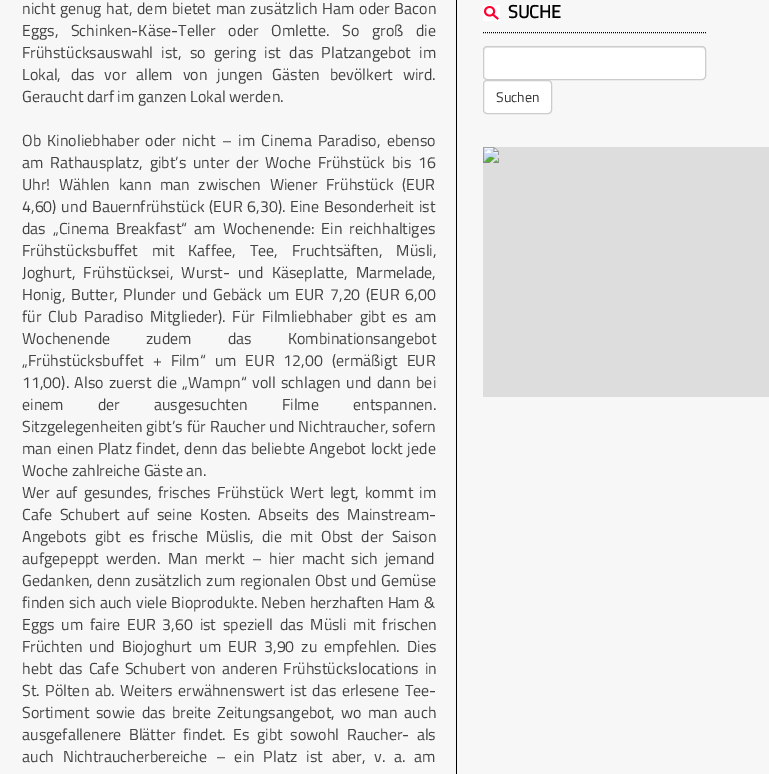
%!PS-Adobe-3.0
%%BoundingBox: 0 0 769 774
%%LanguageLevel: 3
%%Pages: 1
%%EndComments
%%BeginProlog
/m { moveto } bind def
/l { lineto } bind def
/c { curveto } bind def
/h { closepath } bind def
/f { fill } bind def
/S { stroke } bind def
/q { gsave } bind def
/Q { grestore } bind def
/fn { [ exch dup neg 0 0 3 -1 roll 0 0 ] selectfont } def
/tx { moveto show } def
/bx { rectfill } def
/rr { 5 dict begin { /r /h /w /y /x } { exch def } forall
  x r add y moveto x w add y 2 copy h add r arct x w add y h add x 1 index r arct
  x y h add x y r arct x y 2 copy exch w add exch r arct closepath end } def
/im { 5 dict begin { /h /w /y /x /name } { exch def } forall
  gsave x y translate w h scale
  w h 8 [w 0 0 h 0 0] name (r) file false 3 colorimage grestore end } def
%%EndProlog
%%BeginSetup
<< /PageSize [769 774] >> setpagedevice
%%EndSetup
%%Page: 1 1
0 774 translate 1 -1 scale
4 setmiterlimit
0.969 setgray
0 0 769 774 bx
0 setgray
456 0 1 774 bx
/TitilliumWeb-Regular 16 fn
0.267 setgray
22 14 m 1.25 0 32 (nicht genug hat, dem bietet man zusätzlich Ham oder Bacon) widthshow
22 36 m 9 0 32 (Eggs, Schinken-Käse-Teller oder Omlette. So groß die) widthshow
22 58 m 4.75 0 32 (Frühstücksauswahl ist, so gering ist das Platzangebot im) widthshow
22 80 m 6.25 0 32 (Lokal, das vor allem von jungen Gästen bevölkert wird.) widthshow
(Geraucht darf im ganzen Lokal werden.) 22 102 tx
22 146 m 2.75 0 32 (Ob Kinoliebhaber oder nicht – im Cinema Paradiso, ebenso) widthshow
22 168 m 3.25 0 32 (am Rathausplatz, gibt’s unter der Woche Frühstück bis 16) widthshow
22 190 m 5 0 32 (Uhr! Wählen kann man zwischen Wiener Frühstück \(EUR) widthshow
22 212 m 1.25 0 32 (4,60\) und Bauernfrühstück \(EUR 6,30\). Eine Besonderheit ist) widthshow
22 234 m 3.5 0 32 (das „Cinema Breakfast“ am Wochenende: Ein reichhaltiges) widthshow
22 256 m 10.5 0 32 (Frühstücksbuffet mit Kaffee, Tee, Fruchtsäften, Müsli,) widthshow
22 278 m 4.75 0 32 (Joghurt, Frühstücksei, Wurst- und Käseplatte, Marmelade,) widthshow
22 300 m 2.25 0 32 (Honig, Butter, Plunder und Gebäck um EUR 7,20 \(EUR 6,00) widthshow
22 322 m 3.25 0 32 (für Club Paradiso Mitglieder\). Für Filmliebhaber gibt es am) widthshow
22 344 m 32.5 0 32 (Wochenende zudem das Kombinationsangebot) widthshow
22 366 m 5.5 0 32 („Frühstücksbuffet + Film“ um EUR 12,00 \(ermäßigt EUR) widthshow
22 388 m 1.9 0 32 (11,00\). Also zuerst die „Wampn“ voll schlagen und dann bei) widthshow
22 410 m 30.5 0 32 (einem der ausgesuchten Filme entspannen.) widthshow
22 432 m 0.25 0 32 (Sitzgelegenheiten gibt’s für Raucher und Nichtraucher, sofern) widthshow
22 454 m 1 0 32 (man einen Platz findet, denn das beliebte Angebot lockt jede) widthshow
(Woche zahlreiche Gäste an.) 22 476 tx
22 498 m 2.5 0 32 (Wer auf gesundes, frisches Frühstück Wert legt, kommt im) widthshow
22 520 m 4 0 32 (Cafe Schubert auf seine Kosten. Abseits des Mainstream-) widthshow
22 542 m 4.75 0 32 (Angebots gibt es frische Müslis, die mit Obst der Saison) widthshow
22 564 m 3.5 0 32 (aufgepeppt werden. Man merkt – hier macht sich jemand) widthshow
22 586 m 0.75 0 32 (Gedanken, denn zusätzlich zum regionalen Obst und Gemüse) widthshow
22 608 m 0.75 0 32 (finden sich auch viele Bioprodukte. Neben herzhaften Ham &) widthshow
22 630 m 3.1 0 32 (Eggs um faire EUR 3,60 ist speziell das Müsli mit frischen) widthshow
22 652 m 3.5 0 32 (Früchten und Biojoghurt um EUR 3,90 zu empfehlen. Dies) widthshow
22 674 m 2.5 0 32 (hebt das Cafe Schubert von anderen Frühstückslocations in) widthshow
22 696 m 2 0 32 (St. Pölten ab. Weiters erwähnenswert ist das erlesene Tee-) widthshow
22 718 m 2.75 0 32 (Sortiment sowie das breite Zeitungsangebot, wo man auch) widthshow
22 740 m 4 0 32 (ausgefallenere Blätter findet. Es gibt sowohl Raucher- als) widthshow
22 762 m 5.25 0 32 (auch Nichtraucherbereiche – ein Platz ist aber, v. a. am) widthshow
(image0.raw) 483 5 17 16 im
0 setgray
[1 1] 0 setdash
483 32.5 m 706 32.5 l S
/TitilliumWeb-Bold 18 fn
(SUCHE) 508 18 tx
1 setgray
483 46 223 34 4 rr f
0.925 setgray
487 48 m 702 48 l 704 48 705 49 705 51 c 705 50 l 705 48 704 47 702 47 c 487 47 l 485 47 484 48 484 50 c 484 51 l 484 49 485 48 487 48 c h f
0.8 setgray
[] 0 setdash
483.5 46.5 222 33 3.5 rr S
1 setgray
483.5 80.5 68 33 3.5 rr q f Q
0.8 setgray
S
/TitilliumWeb-Regular 14 fn
0.2 setgray
(Suchen) 496 102 tx
(image1.raw) 483 147 286 250 im
showpage
%%EOF
